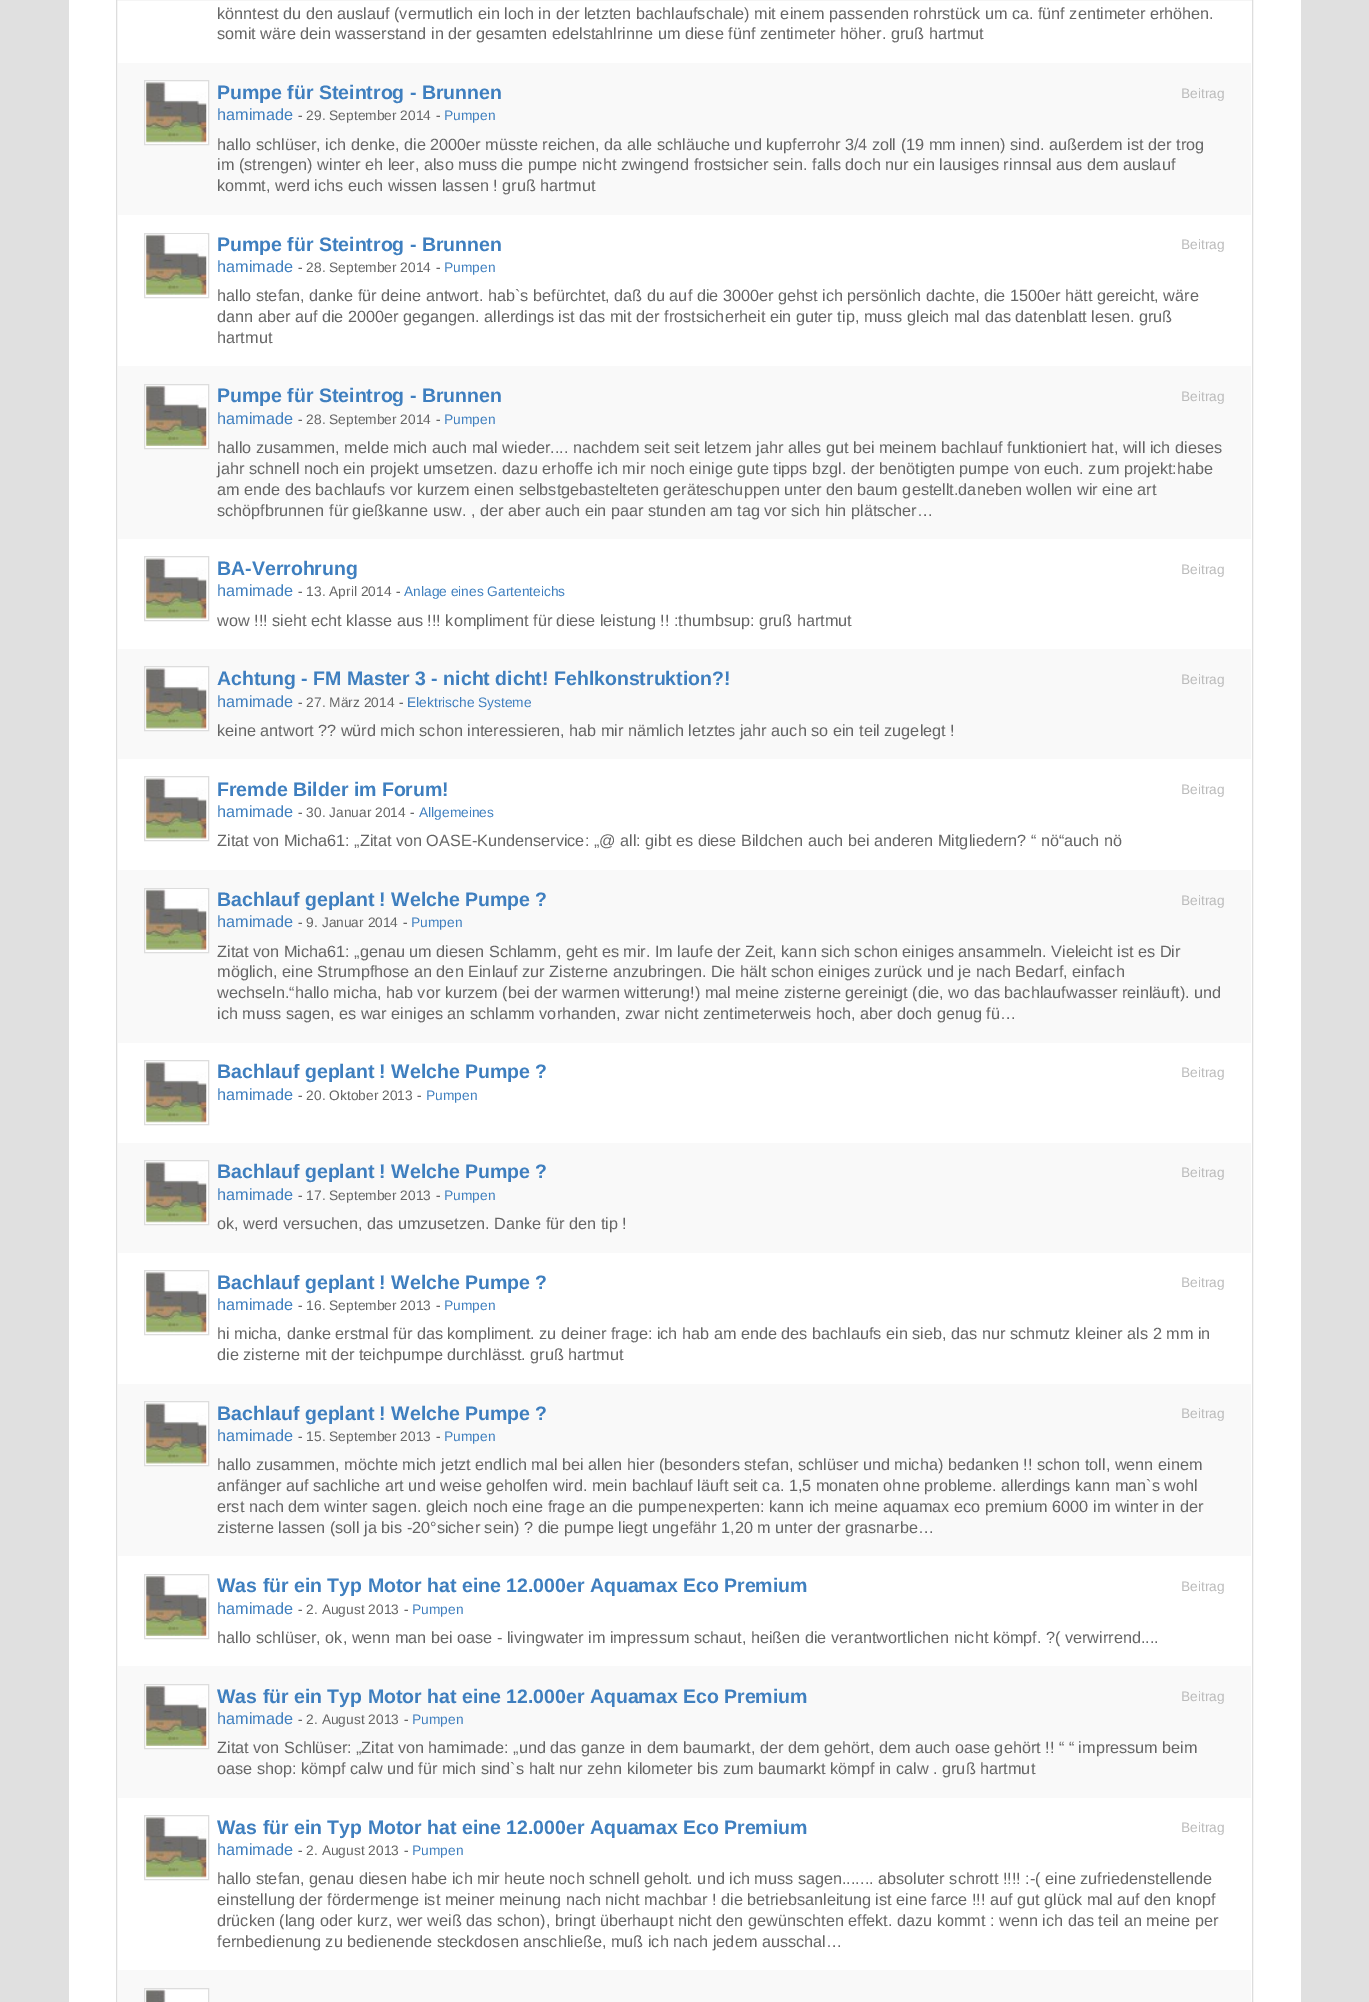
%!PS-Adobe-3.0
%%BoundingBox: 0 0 1369 2002
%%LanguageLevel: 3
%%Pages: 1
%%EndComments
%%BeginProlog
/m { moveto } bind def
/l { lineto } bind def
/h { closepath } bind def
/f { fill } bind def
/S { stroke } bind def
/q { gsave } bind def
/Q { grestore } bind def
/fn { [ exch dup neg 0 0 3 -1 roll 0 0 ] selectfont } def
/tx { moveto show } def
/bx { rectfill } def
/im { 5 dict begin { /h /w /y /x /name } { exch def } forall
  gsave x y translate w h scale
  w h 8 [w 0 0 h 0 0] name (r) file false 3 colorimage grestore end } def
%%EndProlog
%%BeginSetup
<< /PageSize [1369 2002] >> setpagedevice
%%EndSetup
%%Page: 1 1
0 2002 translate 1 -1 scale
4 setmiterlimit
0.878 setgray
0 0 1369 2002 bx
1 setgray
69 0 1232 2002 bx
0.867 setgray
116.5 -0.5 1136 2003 rectstroke
/LiberationSans-Regular 16.25 fn
0.4 setgray
(könntest du den auslauf \(vermutlich ein loch in der letzten bachlaufschale\) mit einem passenden rohrstück um ca. fünf zentimeter erhöhen.) 217 19 tx
(somit wäre dein wasserstand in der gesamten edelstahlrinne um diese fünf zentimeter höher. gruß hartmut) 217 39 tx
0.976 setgray
118 63 1133 152 bx
1 setgray
144.5 80.5 m 208.5 80.5 l 208.5 144.5 l 144.5 144.5 l h q f Q
0.867 setgray
S
(image0.raw) 146 82 61 61 im
/LiberationSans-Bold 19.5 fn
0.247 0.498 0.749 setrgbcolor
(Pumpe für Steintrog - Brunnen) 217 99 tx
/LiberationSans-Regular 13.75 fn
0.733 setgray
(Beitrag) 1181 98 tx
/LiberationSans-Regular 16.25 fn
0.247 0.498 0.749 setrgbcolor
(hamimade) 217 120 tx
/LiberationSans-Regular 13.75 fn
0.4 setgray
(- 29. September 2014) 298 120 tx
(-) 436 120 tx
0.247 0.498 0.749 setrgbcolor
(Pumpen) 444 120 tx
/LiberationSans-Regular 16.25 fn
0.4 setgray
(hallo schlüser, ich denke, die 2000er müsste reichen, da alle schläuche und kupferrohr 3/4 zoll \(19 mm innen\) sind. außerdem ist der trog) 217 150 tx
(im \(strengen\) winter eh leer, also muss die pumpe nicht zwingend frostsicher sein. falls doch nur ein lausiges rinnsal aus dem auslauf) 217 170 tx
(kommt, werd ichs euch wissen lassen ! gruß hartmut) 217 191 tx
0.867 setgray
144.5 233.5 64 64 rectstroke
(image1.raw) 146 234 61 61 im
/LiberationSans-Bold 19.5 fn
0.247 0.498 0.749 setrgbcolor
(Pumpe für Steintrog - Brunnen) 217 251 tx
/LiberationSans-Regular 13.75 fn
0.733 setgray
(Beitrag) 1181 249 tx
/LiberationSans-Regular 16.25 fn
0.247 0.498 0.749 setrgbcolor
(hamimade) 217 272 tx
/LiberationSans-Regular 13.75 fn
0.4 setgray
(- 28. September 2014) 298 272 tx
(-) 436 272 tx
0.247 0.498 0.749 setrgbcolor
(Pumpen) 444 272 tx
/LiberationSans-Regular 16.25 fn
0.4 setgray
(hallo stefan, danke für deine antwort. hab`s befürchtet, daß du auf die 3000er gehst ich persönlich dachte, die 1500er hätt gereicht, wäre) 217 301 tx
(dann aber auf die 2000er gegangen. allerdings ist das mit der frostsicherheit ein guter tip, muss gleich mal das datenblatt lesen. gruß) 217 322 tx
(hartmut) 217 343 tx
0.976 setgray
118 366 1133 173 bx
1 setgray
144.5 384.5 m 208.5 384.5 l 208.5 448.5 l 144.5 448.5 l h q f Q
0.867 setgray
S
(image2.raw) 146 386 61 60 im
/LiberationSans-Bold 19.5 fn
0.247 0.498 0.749 setrgbcolor
(Pumpe für Steintrog - Brunnen) 217 402 tx
/LiberationSans-Regular 13.75 fn
0.733 setgray
(Beitrag) 1181 401 tx
/LiberationSans-Regular 16.25 fn
0.247 0.498 0.749 setrgbcolor
(hamimade) 217 424 tx
/LiberationSans-Regular 13.75 fn
0.4 setgray
(- 28. September 2014) 298 424 tx
(-) 436 424 tx
0.247 0.498 0.749 setrgbcolor
(Pumpen) 444 424 tx
/LiberationSans-Regular 16.25 fn
0.4 setgray
(hallo zusammen, melde mich auch mal wieder.... nachdem seit seit letzem jahr alles gut bei meinem bachlauf funktioniert hat, will ich dieses) 217 453 tx
(jahr schnell noch ein projekt umsetzen. dazu erhoffe ich mir noch einige gute tipps bzgl. der benötigten pumpe von euch. zum projekt:habe) 217 474 tx
(am ende des bachlaufs vor kurzem einen selbstgebastelteten geräteschuppen unter den baum gestellt.daneben wollen wir eine art) 217 495 tx
(schöpfbrunnen für gießkanne usw. , der aber auch ein paar stunden am tag vor sich hin plätscher…) 217 516 tx
0.867 setgray
144.5 556.5 64 64 rectstroke
(image3.raw) 146 558 61 61 im
/LiberationSans-Bold 19.5 fn
0.247 0.498 0.749 setrgbcolor
(BA-Verrohrung) 217 575 tx
/LiberationSans-Regular 13.75 fn
0.733 setgray
(Beitrag) 1181 574 tx
/LiberationSans-Regular 16.25 fn
0.247 0.498 0.749 setrgbcolor
(hamimade) 217 596 tx
/LiberationSans-Regular 13.75 fn
0.4 setgray
(- 13. April 2014) 298 596 tx
(-) 396 596 tx
0.247 0.498 0.749 setrgbcolor
(Anlage eines Gartenteichs) 404 596 tx
/LiberationSans-Regular 16.25 fn
0.4 setgray
(wow !!! sieht echt klasse aus !!! kompliment für diese leistung !! :thumbsup: gruß hartmut) 217 626 tx
0.976 setgray
118 649 1133 110 bx
1 setgray
144.5 666.5 m 208.5 666.5 l 208.5 730.5 l 144.5 730.5 l h q f Q
0.867 setgray
S
(image4.raw) 146 668 61 61 im
/LiberationSans-Bold 19.5 fn
0.247 0.498 0.749 setrgbcolor
(Achtung - FM Master 3 - nicht dicht! Fehlkonstruktion?!) 217 685 tx
/LiberationSans-Regular 13.75 fn
0.733 setgray
(Beitrag) 1181 684 tx
/LiberationSans-Regular 16.25 fn
0.247 0.498 0.749 setrgbcolor
(hamimade) 217 707 tx
/LiberationSans-Regular 13.75 fn
0.4 setgray
(- 27. März 2014) 298 707 tx
(-) 399 707 tx
0.247 0.498 0.749 setrgbcolor
(Elektrische Systeme) 407 707 tx
/LiberationSans-Regular 16.25 fn
0.4 setgray
(keine antwort ?? würd mich schon interessieren, hab mir nämlich letztes jahr auch so ein teil zugelegt !) 217 736 tx
0.867 setgray
144.5 776.5 64 64 rectstroke
(image3.raw) 146 778 61 61 im
/LiberationSans-Bold 19.5 fn
0.247 0.498 0.749 setrgbcolor
(Fremde Bilder im Forum!) 217 796 tx
/LiberationSans-Regular 13.75 fn
0.733 setgray
(Beitrag) 1181 794 tx
/LiberationSans-Regular 16.25 fn
0.247 0.498 0.749 setrgbcolor
(hamimade) 217 817 tx
/LiberationSans-Regular 13.75 fn
0.4 setgray
(- 30. Januar 2014) 298 817 tx
(-) 410 817 tx
0.247 0.498 0.749 setrgbcolor
(Allgemeines) 419 817 tx
/LiberationSans-Regular 16.25 fn
0.4 setgray
(Zitat von Micha61: „Zitat von OASE-Kundenservice: „@ all: gibt es diese Bildchen auch bei anderen Mitgliedern? “ nö“auch nö) 217 846 tx
0.976 setgray
118 870 1133 173 bx
1 setgray
144.5 888.5 m 208.5 888.5 l 208.5 952.5 l 144.5 952.5 l h q f Q
0.867 setgray
S
(image5.raw) 146 889 61 61 im
/LiberationSans-Bold 19.5 fn
0.247 0.498 0.749 setrgbcolor
(Bachlauf geplant ! Welche Pumpe ?) 217 906 tx
/LiberationSans-Regular 13.75 fn
0.733 setgray
(Beitrag) 1181 905 tx
/LiberationSans-Regular 16.25 fn
0.247 0.498 0.749 setrgbcolor
(hamimade) 217 927 tx
/LiberationSans-Regular 13.75 fn
0.4 setgray
(- 9. Januar 2014) 298 927 tx
(-) 403 927 tx
0.247 0.498 0.749 setrgbcolor
(Pumpen) 411 927 tx
/LiberationSans-Regular 16.25 fn
0.4 setgray
(Zitat von Micha61: „genau um diesen Schlamm, geht es mir. Im laufe der Zeit, kann sich schon einiges ansammeln. Vieleicht ist es Dir) 217 957 tx
(möglich, eine Strumpfhose an den Einlauf zur Zisterne anzubringen. Die hält schon einiges zurück und je nach Bedarf, einfach) 217 977 tx
(wechseln.“hallo micha, hab vor kurzem \(bei der warmen witterung!\) mal meine zisterne gereinigt \(die, wo das bachlaufwasser reinläuft\). und) 217 998 tx
(ich muss sagen, es war einiges an schlamm vorhanden, zwar nicht zentimeterweis hoch, aber doch genug fü…) 217 1019 tx
0.867 setgray
144.5 1060.5 64 64 rectstroke
(image0.raw) 146 1062 61 61 im
/LiberationSans-Bold 19.5 fn
0.247 0.498 0.749 setrgbcolor
(Bachlauf geplant ! Welche Pumpe ?) 217 1078 tx
/LiberationSans-Regular 13.75 fn
0.733 setgray
(Beitrag) 1181 1077 tx
/LiberationSans-Regular 16.25 fn
0.247 0.498 0.749 setrgbcolor
(hamimade) 217 1100 tx
/LiberationSans-Regular 13.75 fn
0.4 setgray
(- 20. Oktober 2013) 298 1100 tx
(-) 417 1100 tx
0.247 0.498 0.749 setrgbcolor
(Pumpen) 426 1100 tx
0.976 setgray
118 1143 1133 110 bx
1 setgray
144.5 1160.5 m 208.5 1160.5 l 208.5 1224.5 l 144.5 1224.5 l h q f Q
0.867 setgray
S
(image0.raw) 146 1162 61 61 im
/LiberationSans-Bold 19.5 fn
0.247 0.498 0.749 setrgbcolor
(Bachlauf geplant ! Welche Pumpe ?) 217 1178 tx
/LiberationSans-Regular 13.75 fn
0.733 setgray
(Beitrag) 1181 1177 tx
/LiberationSans-Regular 16.25 fn
0.247 0.498 0.749 setrgbcolor
(hamimade) 217 1200 tx
/LiberationSans-Regular 13.75 fn
0.4 setgray
(- 17. September 2013) 298 1200 tx
(-) 436 1200 tx
0.247 0.498 0.749 setrgbcolor
(Pumpen) 444 1200 tx
/LiberationSans-Regular 16.25 fn
0.4 setgray
(ok, werd versuchen, das umzusetzen. Danke für den tip !) 217 1229 tx
0.867 setgray
144.5 1270.5 64 64 rectstroke
(image6.raw) 146 1272 61 61 im
/LiberationSans-Bold 19.5 fn
0.247 0.498 0.749 setrgbcolor
(Bachlauf geplant ! Welche Pumpe ?) 217 1289 tx
/LiberationSans-Regular 13.75 fn
0.733 setgray
(Beitrag) 1181 1287 tx
/LiberationSans-Regular 16.25 fn
0.247 0.498 0.749 setrgbcolor
(hamimade) 217 1310 tx
/LiberationSans-Regular 13.75 fn
0.4 setgray
(- 16. September 2013) 298 1310 tx
(-) 436 1310 tx
0.247 0.498 0.749 setrgbcolor
(Pumpen) 444 1310 tx
/LiberationSans-Regular 16.25 fn
0.4 setgray
(hi micha, danke erstmal für das kompliment. zu deiner frage: ich hab am ende des bachlaufs ein sieb, das nur schmutz kleiner als 2 mm in) 217 1339 tx
(die zisterne mit der teichpumpe durchlässt. gruß hartmut) 217 1360 tx
0.976 setgray
118 1384 1133 172 bx
1 setgray
144.5 1401.5 m 208.5 1401.5 l 208.5 1465.5 l 144.5 1465.5 l h q f Q
0.867 setgray
S
(image3.raw) 146 1403 61 61 im
/LiberationSans-Bold 19.5 fn
0.247 0.498 0.749 setrgbcolor
(Bachlauf geplant ! Welche Pumpe ?) 217 1420 tx
/LiberationSans-Regular 13.75 fn
0.733 setgray
(Beitrag) 1181 1418 tx
/LiberationSans-Regular 16.25 fn
0.247 0.498 0.749 setrgbcolor
(hamimade) 217 1441 tx
/LiberationSans-Regular 13.75 fn
0.4 setgray
(- 15. September 2013) 298 1441 tx
(-) 436 1441 tx
0.247 0.498 0.749 setrgbcolor
(Pumpen) 444 1441 tx
/LiberationSans-Regular 16.25 fn
0.4 setgray
(hallo zusammen, möchte mich jetzt endlich mal bei allen hier \(besonders stefan, schlüser und micha\) bedanken !! schon toll, wenn einem) 217 1470 tx
(anfänger auf sachliche art und weise geholfen wird. mein bachlauf läuft seit ca. 1,5 monaten ohne probleme. allerdings kann man`s wohl) 217 1491 tx
(erst nach dem winter sagen. gleich noch eine frage an die pumpenexperten: kann ich meine aquamax eco premium 6000 im winter in der) 217 1512 tx
(zisterne lassen \(soll ja bis -20°sicher sein\) ? die pumpe liegt ungefähr 1,20 m unter der grasnarbe…) 217 1533 tx
0.867 setgray
144.5 1574.5 64 64 rectstroke
(image2.raw) 146 1576 61 60 im
/LiberationSans-Bold 19.5 fn
0.247 0.498 0.749 setrgbcolor
(Was für ein Typ Motor hat eine 12.000er Aquamax Eco Premium) 217 1592 tx
/LiberationSans-Regular 13.75 fn
0.733 setgray
(Beitrag) 1181 1591 tx
/LiberationSans-Regular 16.25 fn
0.247 0.498 0.749 setrgbcolor
(hamimade) 217 1614 tx
/LiberationSans-Regular 13.75 fn
0.4 setgray
(- 2. August 2013) 298 1614 tx
(-) 404 1614 tx
0.247 0.498 0.749 setrgbcolor
(Pumpen) 412 1614 tx
/LiberationSans-Regular 16.25 fn
0.4 setgray
(hallo schlüser, ok, wenn man bei oase - livingwater im impressum schaut, heißen die verantwortlichen nicht kömpf. ?\( verwirrend....) 217 1643 tx
0.976 setgray
118 1666 1133 132 bx
1 setgray
144.5 1684.5 m 208.5 1684.5 l 208.5 1748.5 l 144.5 1748.5 l h q f Q
0.867 setgray
S
(image2.raw) 146 1686 61 60 im
/LiberationSans-Bold 19.5 fn
0.247 0.498 0.749 setrgbcolor
(Was für ein Typ Motor hat eine 12.000er Aquamax Eco Premium) 217 1703 tx
/LiberationSans-Regular 13.75 fn
0.733 setgray
(Beitrag) 1181 1701 tx
/LiberationSans-Regular 16.25 fn
0.247 0.498 0.749 setrgbcolor
(hamimade) 217 1724 tx
/LiberationSans-Regular 13.75 fn
0.4 setgray
(- 2. August 2013) 298 1724 tx
(-) 404 1724 tx
0.247 0.498 0.749 setrgbcolor
(Pumpen) 412 1724 tx
/LiberationSans-Regular 16.25 fn
0.4 setgray
(Zitat von Schlüser: „Zitat von hamimade: „und das ganze in dem baumarkt, der dem gehört, dem auch oase gehört !! “ “ impressum beim) 217 1753 tx
(oase shop: kömpf calw und für mich sind`s halt nur zehn kilometer bis zum baumarkt kömpf in calw . gruß hartmut) 217 1774 tx
0.867 setgray
144.5 1815.5 64 64 rectstroke
(image0.raw) 146 1817 61 61 im
/LiberationSans-Bold 19.5 fn
0.247 0.498 0.749 setrgbcolor
(Was für ein Typ Motor hat eine 12.000er Aquamax Eco Premium) 217 1834 tx
/LiberationSans-Regular 13.75 fn
0.733 setgray
(Beitrag) 1181 1832 tx
/LiberationSans-Regular 16.25 fn
0.247 0.498 0.749 setrgbcolor
(hamimade) 217 1855 tx
/LiberationSans-Regular 13.75 fn
0.4 setgray
(- 2. August 2013) 298 1855 tx
(-) 404 1855 tx
0.247 0.498 0.749 setrgbcolor
(Pumpen) 412 1855 tx
/LiberationSans-Regular 16.25 fn
0.4 setgray
(hallo stefan, genau diesen habe ich mir heute noch schnell geholt. und ich muss sagen....... absoluter schrott !!!! :-\( eine zufriedenstellende) 217 1884 tx
(einstellung der fördermenge ist meiner meinung nach nicht machbar ! die betriebsanleitung ist eine farce !!! auf gut glück mal auf den knopf) 217 1905 tx
(drücken \(lang oder kurz, wer weiß das schon\), bringt überhaupt nicht den gewünschten effekt. dazu kommt : wenn ich das teil an meine per) 217 1926 tx
(fernbedienung zu bedienende steckdosen anschließe, muß ich nach jedem ausschal…) 217 1947 tx
0.976 setgray
118 1970 1133 32 bx
1 setgray
144.5 1988.5 m 208.5 1988.5 l 208.5 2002.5 l 144.5 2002.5 l h q f Q
0.867 setgray
S
(image7.raw) 146 1989 20 13 im
showpage
%%EOF
